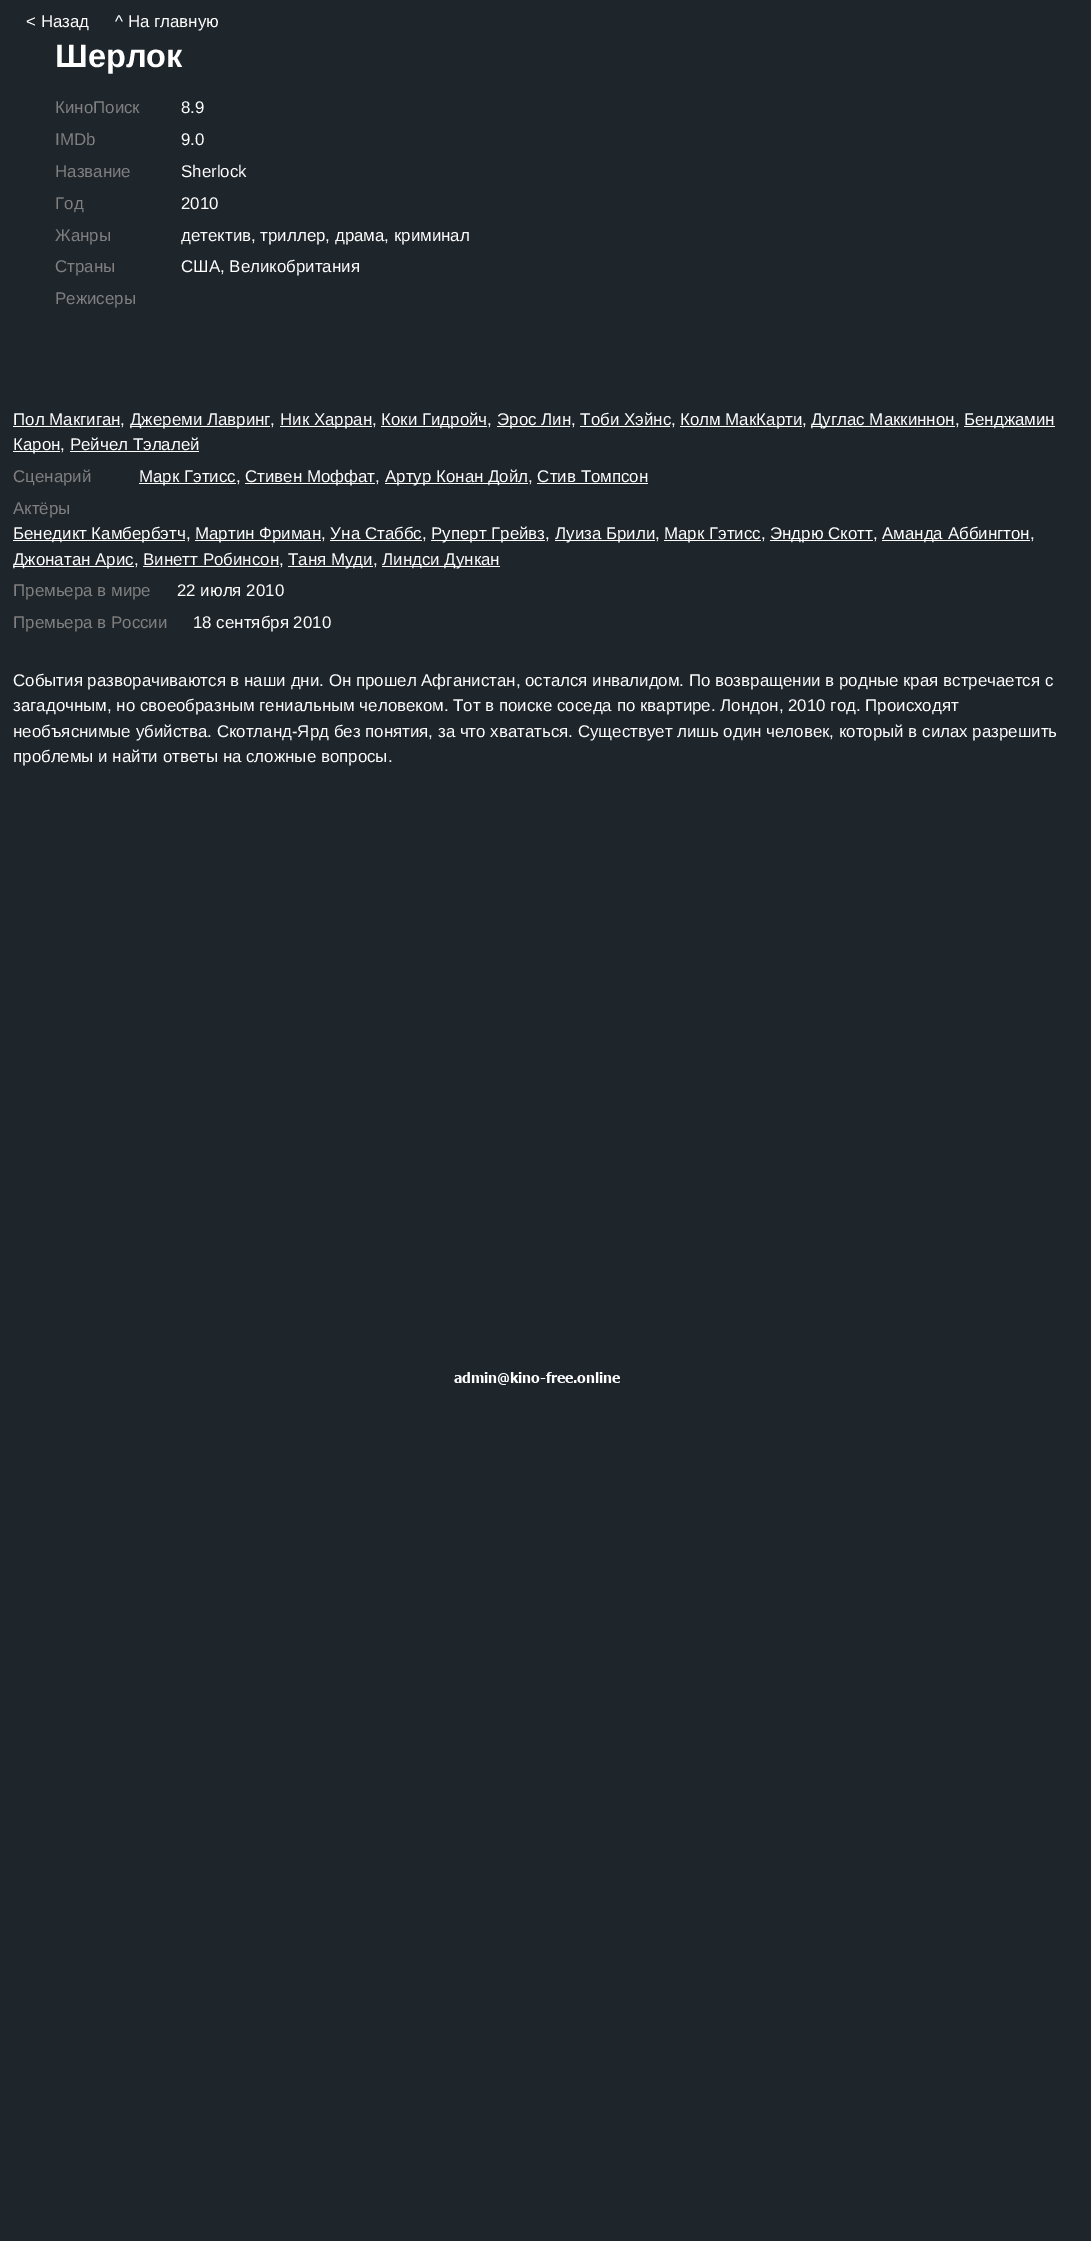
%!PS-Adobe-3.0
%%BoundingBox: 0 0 1091 2241
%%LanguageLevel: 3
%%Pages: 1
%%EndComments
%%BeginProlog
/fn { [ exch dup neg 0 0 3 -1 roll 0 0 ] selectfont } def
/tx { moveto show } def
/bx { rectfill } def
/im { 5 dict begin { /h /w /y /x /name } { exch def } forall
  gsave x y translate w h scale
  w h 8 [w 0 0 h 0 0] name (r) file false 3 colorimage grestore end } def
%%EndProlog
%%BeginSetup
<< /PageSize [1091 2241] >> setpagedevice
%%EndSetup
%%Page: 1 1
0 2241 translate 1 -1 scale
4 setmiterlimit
0.118 0.145 0.169 setrgbcolor
0 0 1091 2241 bx
/LiberationSans-Regular 16.9 fn
1 setgray
(< Назад) 26 27 tx
(^ На главную) 115 27 tx
/LiberationSans-Bold 32.5 fn
(Шерлок) 55 67 tx
/LiberationSans-Regular 16.9 fn
0.502 setgray
(КиноПоиск) 55 113 tx
1 setgray
(8.9) 181 113 tx
0.502 setgray
(IMDb) 55 145 tx
1 setgray
(9.0) 181 145 tx
0.502 setgray
(Название) 55 177 tx
1 setgray
(Sherlock) 181 177 tx
0.502 setgray
(Год) 55 209 tx
1 setgray
(2010) 181 209 tx
0.502 setgray
(Жанры) 55 241 tx
1 setgray
(детектив, триллер, драма, криминал) 181 241 tx
0.502 setgray
(Страны) 55 272 tx
1 setgray
(США, Великобритания) 181 272 tx
0.502 setgray
(Режисеры) 55 304 tx
1 setgray
13 426 107 1 bx
(Пол Макгиган,) 13 425 tx
130 426 140 1 bx
(Джереми Лавринг,) 130 425 tx
280 426 92 1 bx
(Ник Харран,) 280 425 tx
381 426 106 1 bx
(Коки Гидройч,) 381 425 tx
497 426 73 1 bx
(Эрос Лин, Тоби Хэйнс,) 497 425 tx
680 426 122 1 bx
(Колм МакКарти,) 680 425 tx
811 426 144 1 bx
(Дуглас Маккиннон,) 811 425 tx
964 426 91 1 bx
(Бенджамин) 964 425 tx
580 426 90 1 bx
13 451 47 1 bx
(Карон, Рейчел Тэлалей) 13 450 tx
70 451 129 1 bx
0.502 setgray
(Сценарий) 13 482 tx
1 setgray
139 483 97 1 bx
(Марк Гэтисс,) 139 482 tx
245 483 130 1 bx
(Стивен Моффат,) 245 482 tx
385 483 143 1 bx
(Артур Конан Дойл, Стив Томпсон) 385 482 tx
537 483 111 1 bx
0.502 setgray
(Актёры) 13 514 tx
1 setgray
13 540 172 1 bx
(Бенедикт Камбербэтч,) 13 539 tx
195 540 126 1 bx
(Мартин Фриман, Уна Стаббс,) 195 539 tx
431 540 114 1 bx
(Руперт Грейвз,) 431 539 tx
555 540 100 1 bx
(Луиза Брили,) 555 539 tx
664 540 97 1 bx
(Марк Гэтисс,) 664 539 tx
770 540 103 1 bx
(Эндрю Скотт,) 770 539 tx
882 540 148 1 bx
(Аманда Аббингтон,) 882 539 tx
330 540 92 1 bx
13 566 121 1 bx
(Джонатан Арис, Винетт Робинсон,) 13 565 tx
288 566 85 1 bx
(Таня Муди,) 288 565 tx
382 566 118 1 bx
(Линдси Дункан) 382 565 tx
143 566 136 1 bx
0.502 setgray
(Премьера в мире) 13 596 tx
1 setgray
(22 июля 2010) 177 596 tx
0.502 setgray
(Премьера в России) 13 628 tx
1 setgray
(18 сентября 2010) 193 628 tx
(События разворачиваются в наши дни. Он прошел Афганистан, остался инвалидом. По возвращении в родные края встречается с) 13 686 tx
(загадочным, но своеобразным гениальным человеком. Тот в поиске соседа по квартире. Лондон, 2010 год. Происходят) 13 711 tx
(необъяснимые убийства. Скотланд-Ярд без понятия, за что хвататься. Существует лишь один человек, который в силах разрешить) 13 737 tx
(проблемы и найти ответы на сложные вопросы.) 13 762 tx
(image0.raw) 454 1372 166 13 im
showpage
%%EOF
